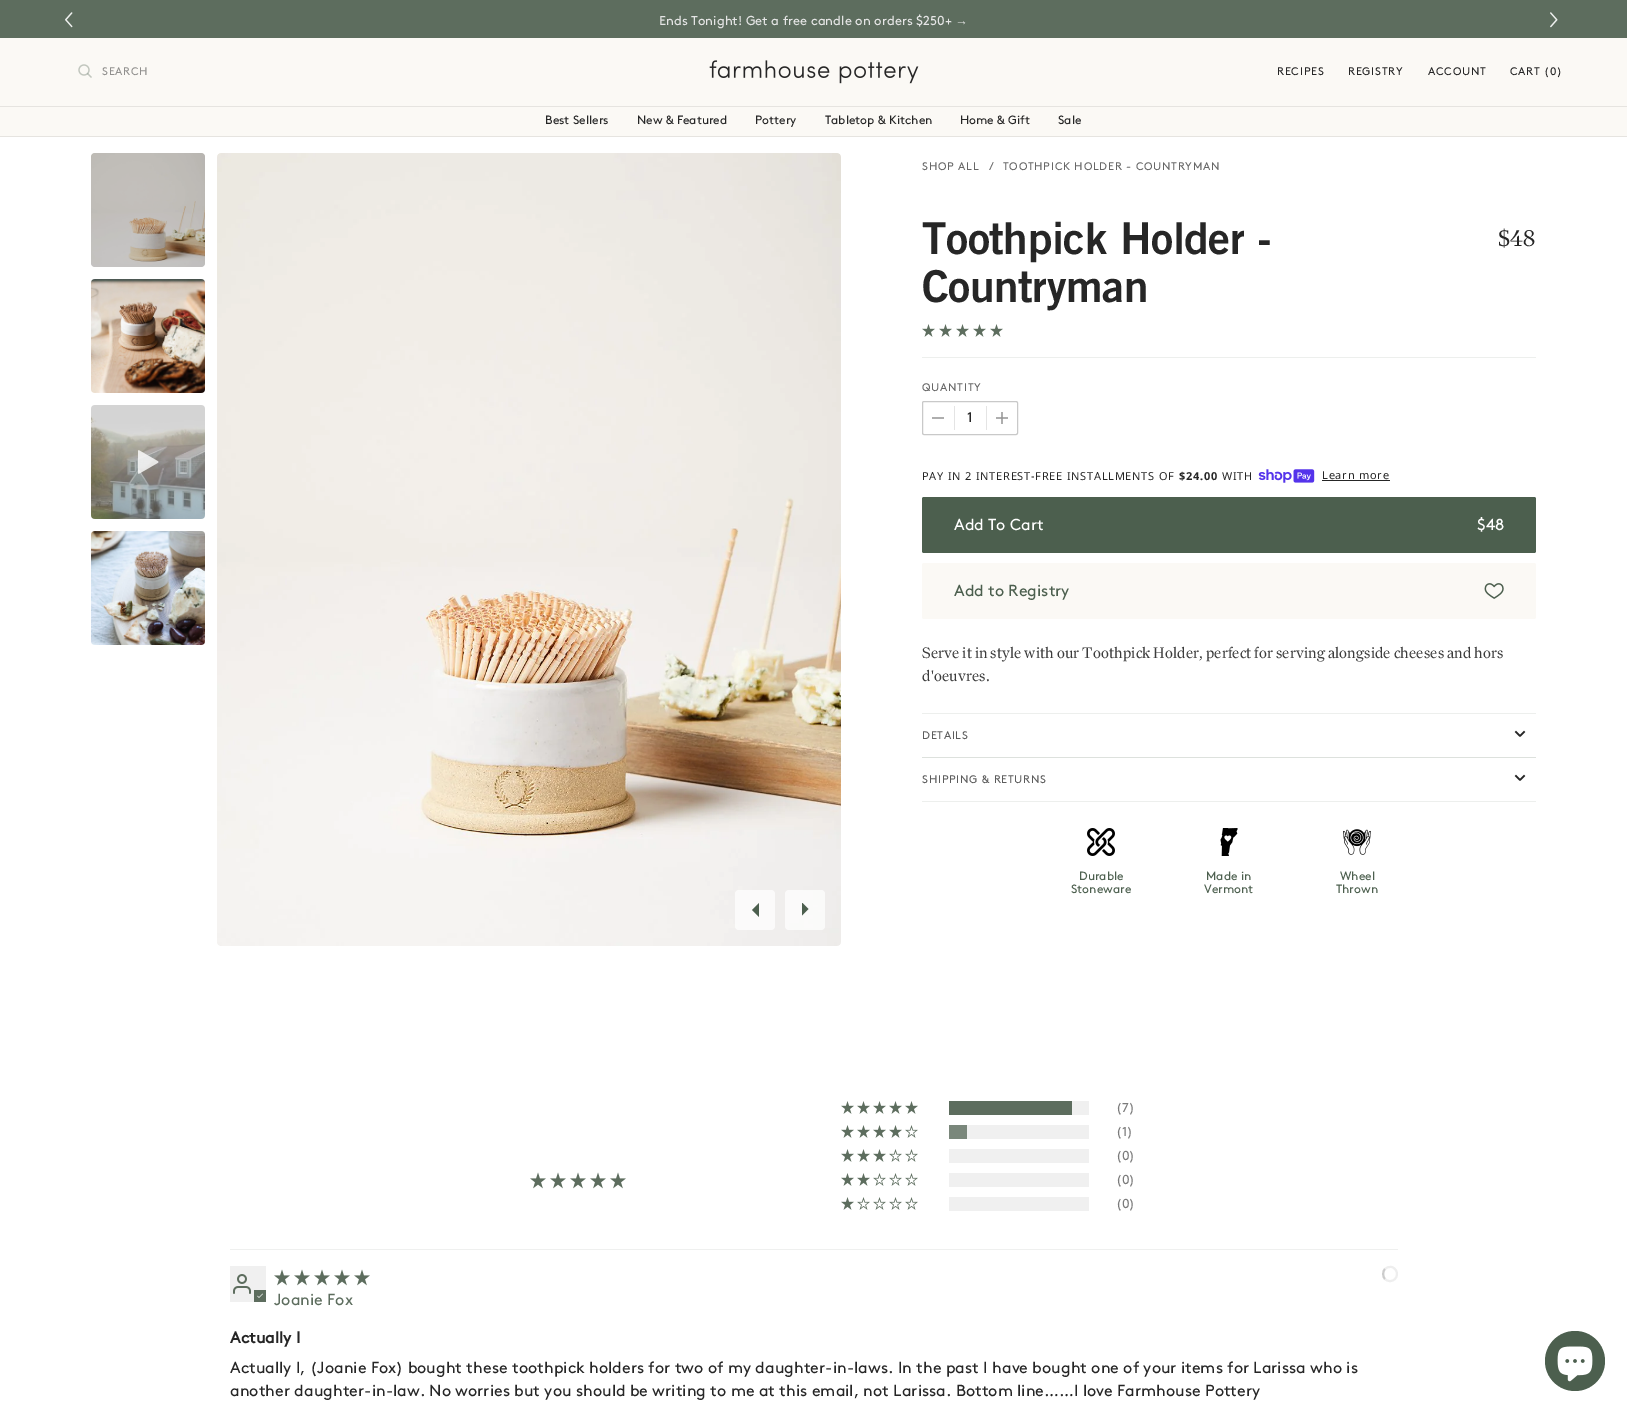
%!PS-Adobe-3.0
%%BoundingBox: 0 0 1627 1412
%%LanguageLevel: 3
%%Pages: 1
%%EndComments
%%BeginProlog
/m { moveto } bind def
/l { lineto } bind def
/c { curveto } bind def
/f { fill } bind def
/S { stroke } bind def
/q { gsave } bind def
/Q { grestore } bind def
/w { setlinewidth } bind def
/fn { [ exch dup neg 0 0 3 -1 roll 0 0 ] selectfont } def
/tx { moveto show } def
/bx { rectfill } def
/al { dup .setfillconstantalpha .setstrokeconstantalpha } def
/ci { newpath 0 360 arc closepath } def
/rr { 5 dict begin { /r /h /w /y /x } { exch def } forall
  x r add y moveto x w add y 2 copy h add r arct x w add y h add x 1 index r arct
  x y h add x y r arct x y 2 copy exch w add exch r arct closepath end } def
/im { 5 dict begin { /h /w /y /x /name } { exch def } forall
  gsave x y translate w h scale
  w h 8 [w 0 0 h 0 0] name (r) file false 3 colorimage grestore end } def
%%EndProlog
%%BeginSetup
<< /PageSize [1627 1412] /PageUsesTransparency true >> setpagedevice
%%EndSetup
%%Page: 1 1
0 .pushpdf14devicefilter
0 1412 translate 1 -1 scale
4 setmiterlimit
1 setgray
0 0 1627 1412 bx
0.682 setgray
1001 412 2 12 bx
0.365 0.427 0.369 setrgbcolor
0 0 1627 38 bx
(image0.raw) 65 12 8 16 im
/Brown-Regular 13 fn
0.898 setgray
(Ends Tonight! Get a free candle on orders $250+) 659 25 tx
/LiberationSerif-Regular 13 fn
(→) 955 25 tx
(image1.raw) 1550 12 8 16 im
0.984 0.976 0.961 setrgbcolor
0 38 1627 98 bx
0.902 0.894 0.878 setrgbcolor
0 106 1627 1 bx
(image2.raw) 78 64 14 14 im
/Brown-Regular 11 fn
0.569 0.565 0.557 setrgbcolor
102 75 m 0.75 0 (SEARCH) ashow
(image3.raw) 709 60 210 24 im
0.149 setgray
1277 75 m 0.75 0 (RECIPES) ashow
1348 75 m 0.75 0 (REGISTRY) ashow
1428 75 m 0.75 0 (ACCOUNT) ashow
1510 75 m 0.75 0 (CART \(0\)) ashow
0.902 0.894 0.878 setrgbcolor
0 136 1627 1 bx
/Brown-Regular 12 fn
0.149 setgray
(Best Sellers) 545 124 tx
(New & Featured) 637 124 tx
(Pottery) 755 124 tx
(Tabletop & Kitchen) 825 124 tx
(Home & Gift) 960 124 tx
(Sale) 1058 124 tx
(image4.raw) 91 153 114 114 im
0.2 al
0 setgray
91 153 114 114 4 rr f
1 al
(image5.raw) 91 279 114 114 im
(image6.raw) 91 405 114 114 im
(image7.raw) 138 450 21 24 im
(image8.raw) 91 531 114 114 im
(image9.raw) 217 153 624 793 im
0.7 al
1 setgray
735 890 40 40 4 rr f
1 al
0.298 0.373 0.306 setrgbcolor
759 917 m 752 910 l 759 903 l f
0.7 al
1 setgray
785 890 40 40 4 rr f
q
802 903 7 14 rectclip
1 al
0.298 0.373 0.306 setrgbcolor
801.5 902 m 808.5 909 l 801.5 916 l f
Q
/Brown-Regular 11 fn
1 al
0.404 setgray
922 170 m 0.75 0 (SHOP ALL) ashow
(/) 989 170 tx
1003 170 m 0.75 0 (TOOTHPICK HOLDER - COUNTRYMAN) ashow
/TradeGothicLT-Bold 44 fn
0.149 setgray
922 254 m -0.4 0 (Toothpick Holder -) ashow
922 302 m -0.4 0 (Countryman) ashow
/LiberationSerif-Regular 24 fn
($) 1498 246 tx
/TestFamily-Regular 24 fn
(48) 1510 246 tx
(image10.raw) 922 324 13 13 im
(image10.raw) 939 324 13 13 im
(image10.raw) 956 324 13 13 im
(image10.raw) 973 324 13 13 im
(image10.raw) 990 324 13 13 im
0.929 0.937 0.929 setrgbcolor
922 357 614 1 bx
/Brown-Regular 11 fn
0.404 setgray
922 391 m 0.75 0 (QUANTITY) ashow
0.788 setgray
922.5 401.5 95 33 1.5 rr S
0.894 setgray
954 406 1 24 bx
0.682 setgray
932 417 12 2 bx
/Brown-Regular 14 fn
0.149 setgray
(1) 967 422 tx
0.894 setgray
986 406 1 24 bx
0.682 setgray
996 417 12 2 bx
0.604 setgray
1001 417 2 2 bx
/NotoSans-Regular 11 fn
0.149 setgray
922 480 m 0.75 0 (PAY IN 2 INTEREST-FREE INSTALLMENTS OF) ashow
/NotoSans-Bold 11 fn
1179 480 m 0.75 0 ($24.00) ashow
/NotoSans-Regular 11 fn
1222 480 m 0.75 0 (WITH) ashow
(image11.raw) 1258 469 57 14 im
1322 479 m 0.75 0 (Learn more) ashow
1322 480 68 1 bx
0.298 0.373 0.306 setrgbcolor
922 497 614 56 2 rr f
/Brown-Regular 16 fn
1 setgray
(Add To Cart) 954 530 tx
($48) 1477 530 tx
0.984 0.976 0.961 setrgbcolor
922 563 614 56 2 rr f
0.298 0.373 0.306 setrgbcolor
(Add to Registry) 954 596 tx
(image12.raw) 1484 583 20 16 im
/TestFamily-Regular 16 fn
0.235 setgray
922 658 m 0.15 0 (Serve it in style with our Toothpick Holder, perfect for serving alongside cheeses and hors) ashow
922 681 m 0.15 0 (d) ashow
/LiberationSerif-Regular 16 fn
931 681 m 0.15 0 (') ashow
/TestFamily-Regular 16 fn
934 681 m 0.15 0 (oeuvres.) ashow
0.929 0.937 0.929 setrgbcolor
922 713 614 1 bx
/Brown-Regular 11 fn
0.361 setgray
922 739 m 0.75 0 (DETAILS) ashow
0.867 0.882 0.867 setrgbcolor
922 757 614 1 bx
0.149 setgray
1.5 w
2 setlinecap
1 setlinejoin
1516 732 m 1520 736 l 1524 732 l 1516 776 m 1520 780 l 1524 776 l S
0.929 0.937 0.929 setrgbcolor
922 801 614 1 bx
0.361 setgray
922 783 m 0.75 0 (SHIPPING & RETURNS) ashow
(image13.raw) 1087 828 28 28 im
/Brown-Regular 12 fn
0.298 0.373 0.306 setrgbcolor
(Durable) 1079 880 tx
(Stoneware) 1071 893 tx
(image14.raw) 1220 828 18 28 im
(Made in) 1206 880 tx
(Vermont) 1204 893 tx
(image15.raw) 1343 829 28 26 im
(Wheel) 1340 880 tx
(Thrown) 1336 893 tx
(image16.raw) 530 1172 16 17 im
(image16.raw) 550 1172 16 17 im
(image16.raw) 570 1172 16 17 im
(image16.raw) 590 1172 16 17 im
(image16.raw) 610 1172 16 17 im
(image10.raw) 841 1101 13 13 im
(image10.raw) 857 1101 13 13 im
(image10.raw) 873 1101 13 13 im
(image10.raw) 889 1101 13 13 im
(image10.raw) 905 1101 13 13 im
0.941 setgray
1072 1101 17 14 bx
0.365 0.427 0.369 setrgbcolor
949 1101 123 14 bx
/Brown-Regular 13 fn
0.482 setgray
(\(7\)) 1116 1112 tx
(image10.raw) 841 1125 13 13 im
(image10.raw) 857 1125 13 13 im
(image10.raw) 873 1125 13 13 im
(image10.raw) 889 1125 13 13 im
(image17.raw) 905 1125 13 13 im
0.941 setgray
967 1125 122 14 bx
0.478 0.529 0.482 setrgbcolor
949 1125 18 14 bx
0.482 setgray
(\(1\)) 1116 1136 tx
(image10.raw) 841 1149 13 13 im
(image10.raw) 857 1149 13 13 im
(image10.raw) 873 1149 13 13 im
(image17.raw) 889 1149 13 13 im
(image17.raw) 905 1149 13 13 im
0.941 setgray
949 1149 140 14 bx
0.482 setgray
(\(0\)) 1116 1160 tx
(image10.raw) 841 1173 13 13 im
(image10.raw) 857 1173 13 13 im
(image17.raw) 873 1173 13 13 im
(image17.raw) 889 1173 13 13 im
(image17.raw) 905 1173 13 13 im
0.941 setgray
949 1173 140 14 bx
0.482 setgray
(\(0\)) 1116 1184 tx
(image10.raw) 841 1197 13 13 im
(image17.raw) 857 1197 13 13 im
(image17.raw) 873 1197 13 13 im
(image17.raw) 889 1197 13 13 im
(image17.raw) 905 1197 13 13 im
0.941 setgray
949 1197 140 14 bx
0.482 setgray
(\(0\)) 1116 1208 tx
0.937 0.941 0.937 setrgbcolor
230 1249 1168 1 bx
0.941 setgray
230 1266 36 36 bx
(image18.raw) 233 1274 18 20 im
0.365 0.427 0.369 setrgbcolor
254 1290 12 12 bx
(image19.raw) 257 1293 6 5 im
(image16.raw) 274 1269 16 17 im
(image16.raw) 294 1269 16 17 im
(image16.raw) 314 1269 16 17 im
(image16.raw) 334 1269 16 17 im
(image16.raw) 354 1269 16 17 im
0.933 setgray
2 w
0 setlinecap
0 setlinejoin
1385 1269 m 1386.5 1267.5 1389 1266.5 1391.5 1267 c 1399.5 1269 1398.5 1281 1390 1281 c 1388 1281 1386.5 1280.5 1385 1279 c S
0.8 setgray
1385 1279 m 1382.5 1276.5 1382.5 1271.5 1385 1269 c S
/Brown-Regular 16 fn
0.365 0.427 0.369 setrgbcolor
(Joanie Fox) 274 1305 tx
/Brown-Bold 16 fn
0.149 setgray
(Actually I) 230 1343 tx
/Brown-Regular 16 fn
(Actually I, \(Joanie Fox\) bought these toothpick holders for two of my daughter-in-laws. In the past I have bought one of your items for Larissa who is) 230 1373 tx
(another daughter-in-law. No worries but you should be writing to me at this email, not Larissa. Bottom line……I love Farmhouse Pottery) 230 1396 tx
0.298 0.373 0.306 setrgbcolor
1575 1361 30 ci f
(image20.raw) 1557 1346 36 36 im
.poppdf14devicefilter showpage
%%EOF
